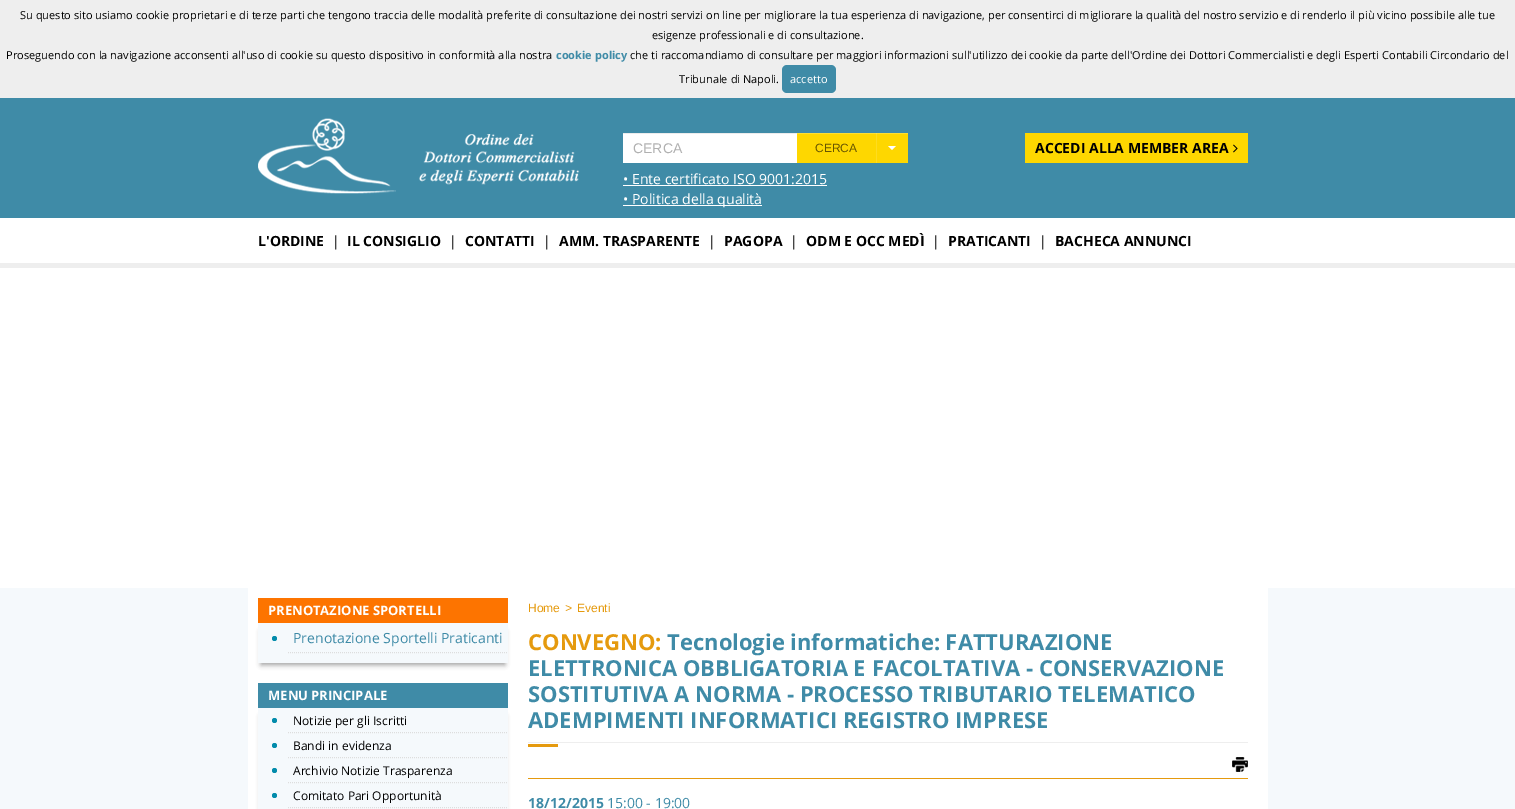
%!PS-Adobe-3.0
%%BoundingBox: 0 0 1515 809
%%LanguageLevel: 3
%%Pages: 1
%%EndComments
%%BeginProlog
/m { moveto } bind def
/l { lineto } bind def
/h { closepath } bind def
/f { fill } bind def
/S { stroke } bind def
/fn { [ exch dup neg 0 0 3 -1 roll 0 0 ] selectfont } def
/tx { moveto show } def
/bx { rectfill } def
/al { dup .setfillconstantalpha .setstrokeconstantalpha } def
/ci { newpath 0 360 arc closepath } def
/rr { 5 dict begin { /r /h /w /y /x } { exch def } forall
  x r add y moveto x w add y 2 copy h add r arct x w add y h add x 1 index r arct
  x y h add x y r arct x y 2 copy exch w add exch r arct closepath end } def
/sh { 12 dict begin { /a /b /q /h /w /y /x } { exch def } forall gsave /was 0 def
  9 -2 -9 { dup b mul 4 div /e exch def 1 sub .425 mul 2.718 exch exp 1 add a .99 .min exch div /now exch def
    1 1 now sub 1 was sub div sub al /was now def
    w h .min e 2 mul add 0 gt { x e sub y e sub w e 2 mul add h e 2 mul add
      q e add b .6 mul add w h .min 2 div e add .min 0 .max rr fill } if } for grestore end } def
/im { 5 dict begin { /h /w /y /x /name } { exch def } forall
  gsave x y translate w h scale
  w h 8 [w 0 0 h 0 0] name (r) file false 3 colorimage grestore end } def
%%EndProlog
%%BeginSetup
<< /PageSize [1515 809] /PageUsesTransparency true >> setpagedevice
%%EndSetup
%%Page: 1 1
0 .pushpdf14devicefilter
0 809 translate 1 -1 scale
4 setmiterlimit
0.961 0.976 0.988 setrgbcolor
0 0 1515 809 bx
0.933 setgray
0 0 1515 98 bx
/OpenSans-Regular 11 fn
0 setgray
(Su questo sito usiamo cookie proprietari e di terze parti che tengono traccia delle modalità preferite di consultazione dei nostri servizi on line per migliorare la tua esperienza di navigazione, per consentirci di migliorare la qualità del nostro servizio e di renderlo il più vicino possibile alle tue) 20 19 tx
(esigenze professionali e di consultazione.) 652 39 tx
(Proseguendo con la navigazione acconsenti all'uso di cookie su questo dispositivo in conformità alla nostra) 6 59 tx
/OpenSans-Bold 11 fn
0.247 0.545 0.655 setrgbcolor
(cookie policy) 556 59 tx
/OpenSans-Regular 11 fn
0 setgray
(che ti raccomandiamo di consultare per maggiori informazioni sull'utilizzo dei cookie da parte dell'Ordine dei Dottori Commercialisti e degli Esperti Contabili Circondario del) 630 59 tx
(Tribunale di Napoli.) 679 83 tx
0.247 0.545 0.655 setrgbcolor
782 65 54 28 5 rr f
1 setgray
(accetto) 790 83 tx
0.247 0.545 0.655 setrgbcolor
0 98 1515 120 bx
1 setgray
623 134 174 29 bx
0.925 setgray
623 133 175 1 bx
/LiberationSans-Regular 14 fn
0.69 setgray
(CERCA) 633 153 tx
0.996 0.843 0 setrgbcolor
797 134 79 29 bx
0.996 0.875 0.2 setrgbcolor
797 133 80 1 bx
/LiberationSans-Regular 12 fn
0.404 0.333 0.004 setrgbcolor
(CERCA) 815 152 tx
0.996 0.843 0 setrgbcolor
877 134 31 29 bx
0.996 0.863 0.122 setrgbcolor
876 133 1 30 bx
0.996 0.875 0.2 setrgbcolor
876 133 32 1 bx
0.996 0.89 0.294 setrgbcolor
876 133 1 1 bx
1 setgray
888 146 m 896 146 l 892 150 l h f
0.996 0.843 0 setrgbcolor
1025 133 223 30 bx
/OpenSans-Bold 14 fn
0 setgray
(ACCEDI ALLA MEMBER AREA) 1035 153 tx
(image0.raw) 1233 144 5 9 im
(image1.raw) 258 118 322 76 im
/OpenSans-Regular 14 fn
1 setgray
(• Ente certificato ISO 9001:2015) 623 184 tx
623 185 204 1 bx
623 205 139 1 bx
(• Politica della qualità) 623 204 tx
0 218 1515 45 bx
0.933 setgray
0 263 1515 5 bx
/OpenSans-Bold 14 fn
0 setgray
(L'ORDINE) 258 246 tx
/OpenSans-Regular 14 fn
(|) 332 246 tx
/OpenSans-Bold 14 fn
(IL CONSIGLIO) 347 246 tx
/OpenSans-Regular 14 fn
(|) 449 246 tx
/OpenSans-Bold 14 fn
(CONTATTI) 465 246 tx
/OpenSans-Regular 14 fn
(|) 543 246 tx
/OpenSans-Bold 14 fn
(AMM. TRASPARENTE) 559 246 tx
/OpenSans-Regular 14 fn
(|) 708 246 tx
/OpenSans-Bold 14 fn
(PAGOPA) 724 246 tx
/OpenSans-Regular 14 fn
(|) 790 246 tx
/OpenSans-Bold 14 fn
(ODM E OCC MEDÌ) 806 246 tx
/OpenSans-Regular 14 fn
(|) 932 246 tx
/OpenSans-Bold 14 fn
(PRATICANTI) 948 246 tx
/OpenSans-Regular 14 fn
(|) 1039 246 tx
/OpenSans-Bold 14 fn
(BACHECA ANNUNCI) 1055 246 tx
1 setgray
0 268 1515 320 bx
248 588 1020 221 bx
0 setgray
261 631 244 34 0 2.5 0.36 sh
0.992 0.455 0 setrgbcolor
258 598 250 25 bx
/OpenSans-Bold 13 fn
1 setgray
(PRENOTAZIONE SPORTELLI) 268 615 tx
0.961 0.976 0.988 setrgbcolor
258 623 250 40 bx
0.867 setgray
[1 1] 0 setdash
288 652.5 m 508 652.5 l S
0.008 0.545 0.671 setrgbcolor
274.5 638.5 2.5 ci f
/OpenSans-Regular 14 fn
0.247 0.545 0.655 setrgbcolor
(Prenotazione Sportelli Praticanti) 293 643 tx
0 setgray
261 716 244 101 0 2.5 0.36 sh
0.247 0.545 0.655 setrgbcolor
258 683 250 25 bx
/OpenSans-Bold 13 fn
1 setgray
(MENU PRINCIPALE) 268 700 tx
0.961 0.976 0.988 setrgbcolor
258 708 250 101 bx
0.867 setgray
288 732.5 m 508 732.5 l S
0.008 0.545 0.671 setrgbcolor
274.5 720.5 2.5 ci f
/OpenSans-Regular 12 fn
0 setgray
(Notizie per gli Iscritti) 293 725 tx
0.867 setgray
288 757.5 m 508 757.5 l S
0.008 0.545 0.671 setrgbcolor
274.5 745.5 2.5 ci f
0 setgray
(Bandi in evidenza) 293 750 tx
0.867 setgray
288 782.5 m 508 782.5 l S
0.008 0.545 0.671 setrgbcolor
274.5 770.5 2.5 ci f
0 setgray
(Archivio Notizie Trasparenza) 293 775 tx
0.867 setgray
288 807.5 m 508 807.5 l S
0.008 0.545 0.671 setrgbcolor
274.5 795.5 2.5 ci f
0 setgray
(Comitato Pari Opportunità) 293 800 tx
/LiberationSans-Regular 12 fn
0.898 0.604 0.055 setrgbcolor
(Home) 528 612 tx
/LiberationSans-Italic 12 fn
(>) 565 612 tx
/LiberationSans-Regular 12 fn
(Eventi) 577 612 tx
0.933 setgray
528 742 720 1 bx
/OpenSans-Bold 22 fn
0.898 0.604 0.055 setrgbcolor
(CONVEGNO:) 528 650 tx
0.247 0.545 0.655 setrgbcolor
(Tecnologie informatiche: FATTURAZIONE) 667 650 tx
(ELETTRONICA OBBLIGATORIA E FACOLTATIVA - CONSERVAZIONE) 528 676 tx
(SOSTITUTIVA A NORMA - PROCESSO TRIBUTARIO TELEMATICO) 528 702 tx
(ADEMPIMENTI INFORMATICI REGISTRO IMPRESE) 528 728 tx
0.898 0.604 0.055 setrgbcolor
528 744 30 3 bx
(image2.raw) 1232 757 16 15 im
528 778 720 1 bx
/OpenSans-Bold 14 fn
0.247 0.545 0.655 setrgbcolor
(18/12/2015) 528 808 tx
/OpenSans-Regular 14 fn
(15:00 - 19:00) 607 808 tx
.poppdf14devicefilter showpage
%%EOF
